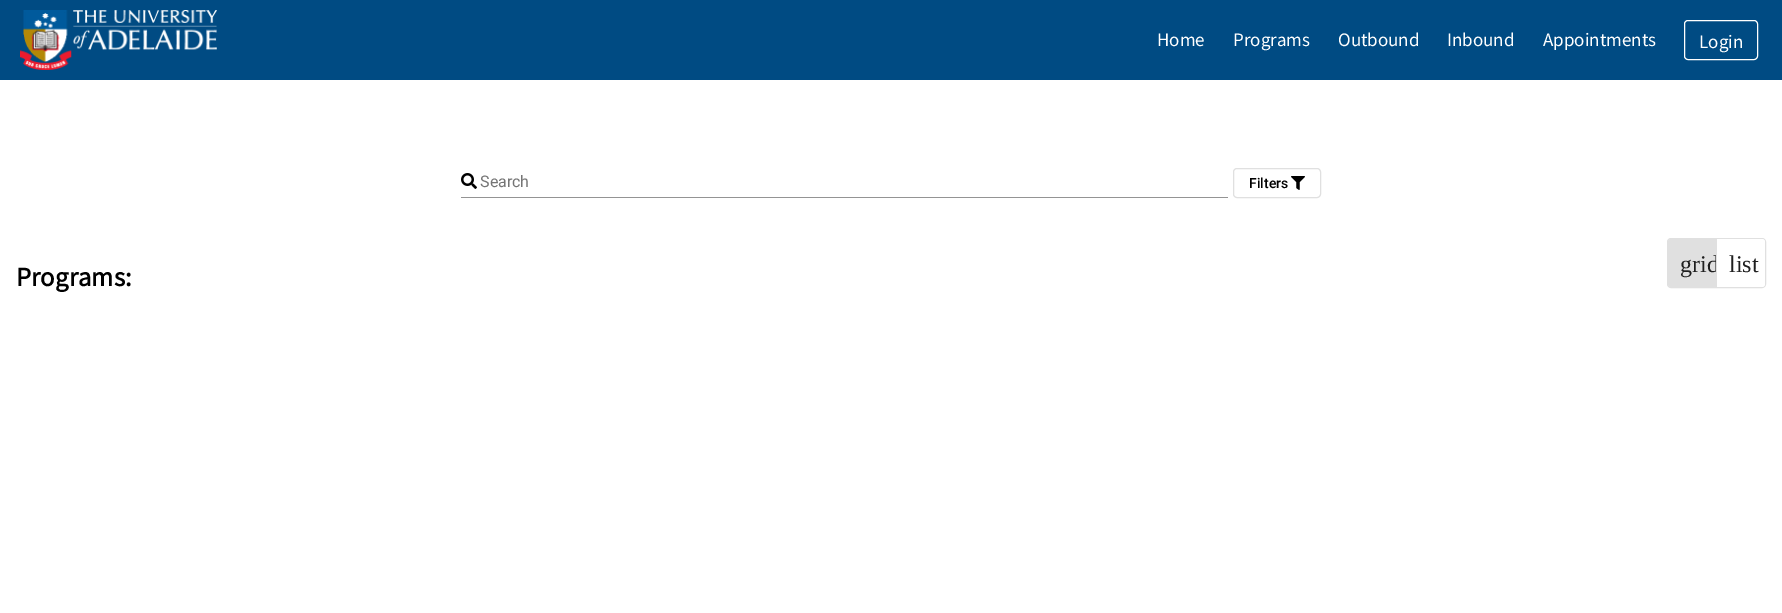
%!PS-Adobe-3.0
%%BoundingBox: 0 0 1782 613
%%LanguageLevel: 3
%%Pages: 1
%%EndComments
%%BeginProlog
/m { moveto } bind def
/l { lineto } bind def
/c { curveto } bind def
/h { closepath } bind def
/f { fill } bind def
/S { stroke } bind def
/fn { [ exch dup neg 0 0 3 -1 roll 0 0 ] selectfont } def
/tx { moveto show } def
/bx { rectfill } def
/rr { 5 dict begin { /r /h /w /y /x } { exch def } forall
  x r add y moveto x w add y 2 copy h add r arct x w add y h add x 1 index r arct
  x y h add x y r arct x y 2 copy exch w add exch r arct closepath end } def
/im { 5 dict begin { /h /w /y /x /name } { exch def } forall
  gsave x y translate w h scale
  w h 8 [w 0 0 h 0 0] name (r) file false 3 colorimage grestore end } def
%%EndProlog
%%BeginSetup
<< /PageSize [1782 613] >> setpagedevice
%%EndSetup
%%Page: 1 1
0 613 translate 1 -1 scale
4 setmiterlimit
1 setgray
0 0 1782 613 bx
0 0.294 0.514 setrgbcolor
0 0 1782 80 bx
(image0.raw) 20 10 197 60 im
/NotoSansJP-Regular 17 fn
1 setgray
(Home) 1157 46 tx
(Programs) 1233 46 tx
(Outbound) 1338 46 tx
(Inbound) 1447 46 tx
(Appointments) 1543 46 tx
1684.5 20.5 73 39 3.5 rr S
(Login) 1699 48 tx
(image1.raw) 461 173 16 16 im
/Roboto-Regular 16 fn
0.459 setgray
(Search) 480 187 tx
0.58 setgray
461 197 767 1 bx
0.878 setgray
1233.5 168.5 87 29 3.5 rr S
/Roboto-Medium 14 fn
0 setgray
(Filters) 1249 188 tx
(image2.raw) 1291 176 14 14 im
/NotoSansJP-Bold 24 fn
(Programs:) 16 286 tx
0.878 setgray
1667.5 238.5 98 49 3.5 rr S
1671 239 m 1716 239 l 1716 287 l 1671 287 l 1669.5 287 1668 285.5 1668 284 c 1668 242 l 1668 240.5 1669.5 239 1671 239 c h f
/LiberationSerif-Regular 24 fn
0.122 setgray
(grid) 1680 272 tx
1 setgray
1716 239 m 1762 239 l 1763.5 239 1765 240.5 1765 242 c 1765 284 l 1765 285.5 1763.5 287 1762 287 c 1716 287 l h f
0.878 setgray
1716 239 1 48 bx
0.122 setgray
(list) 1729 272 tx
showpage
%%EOF
